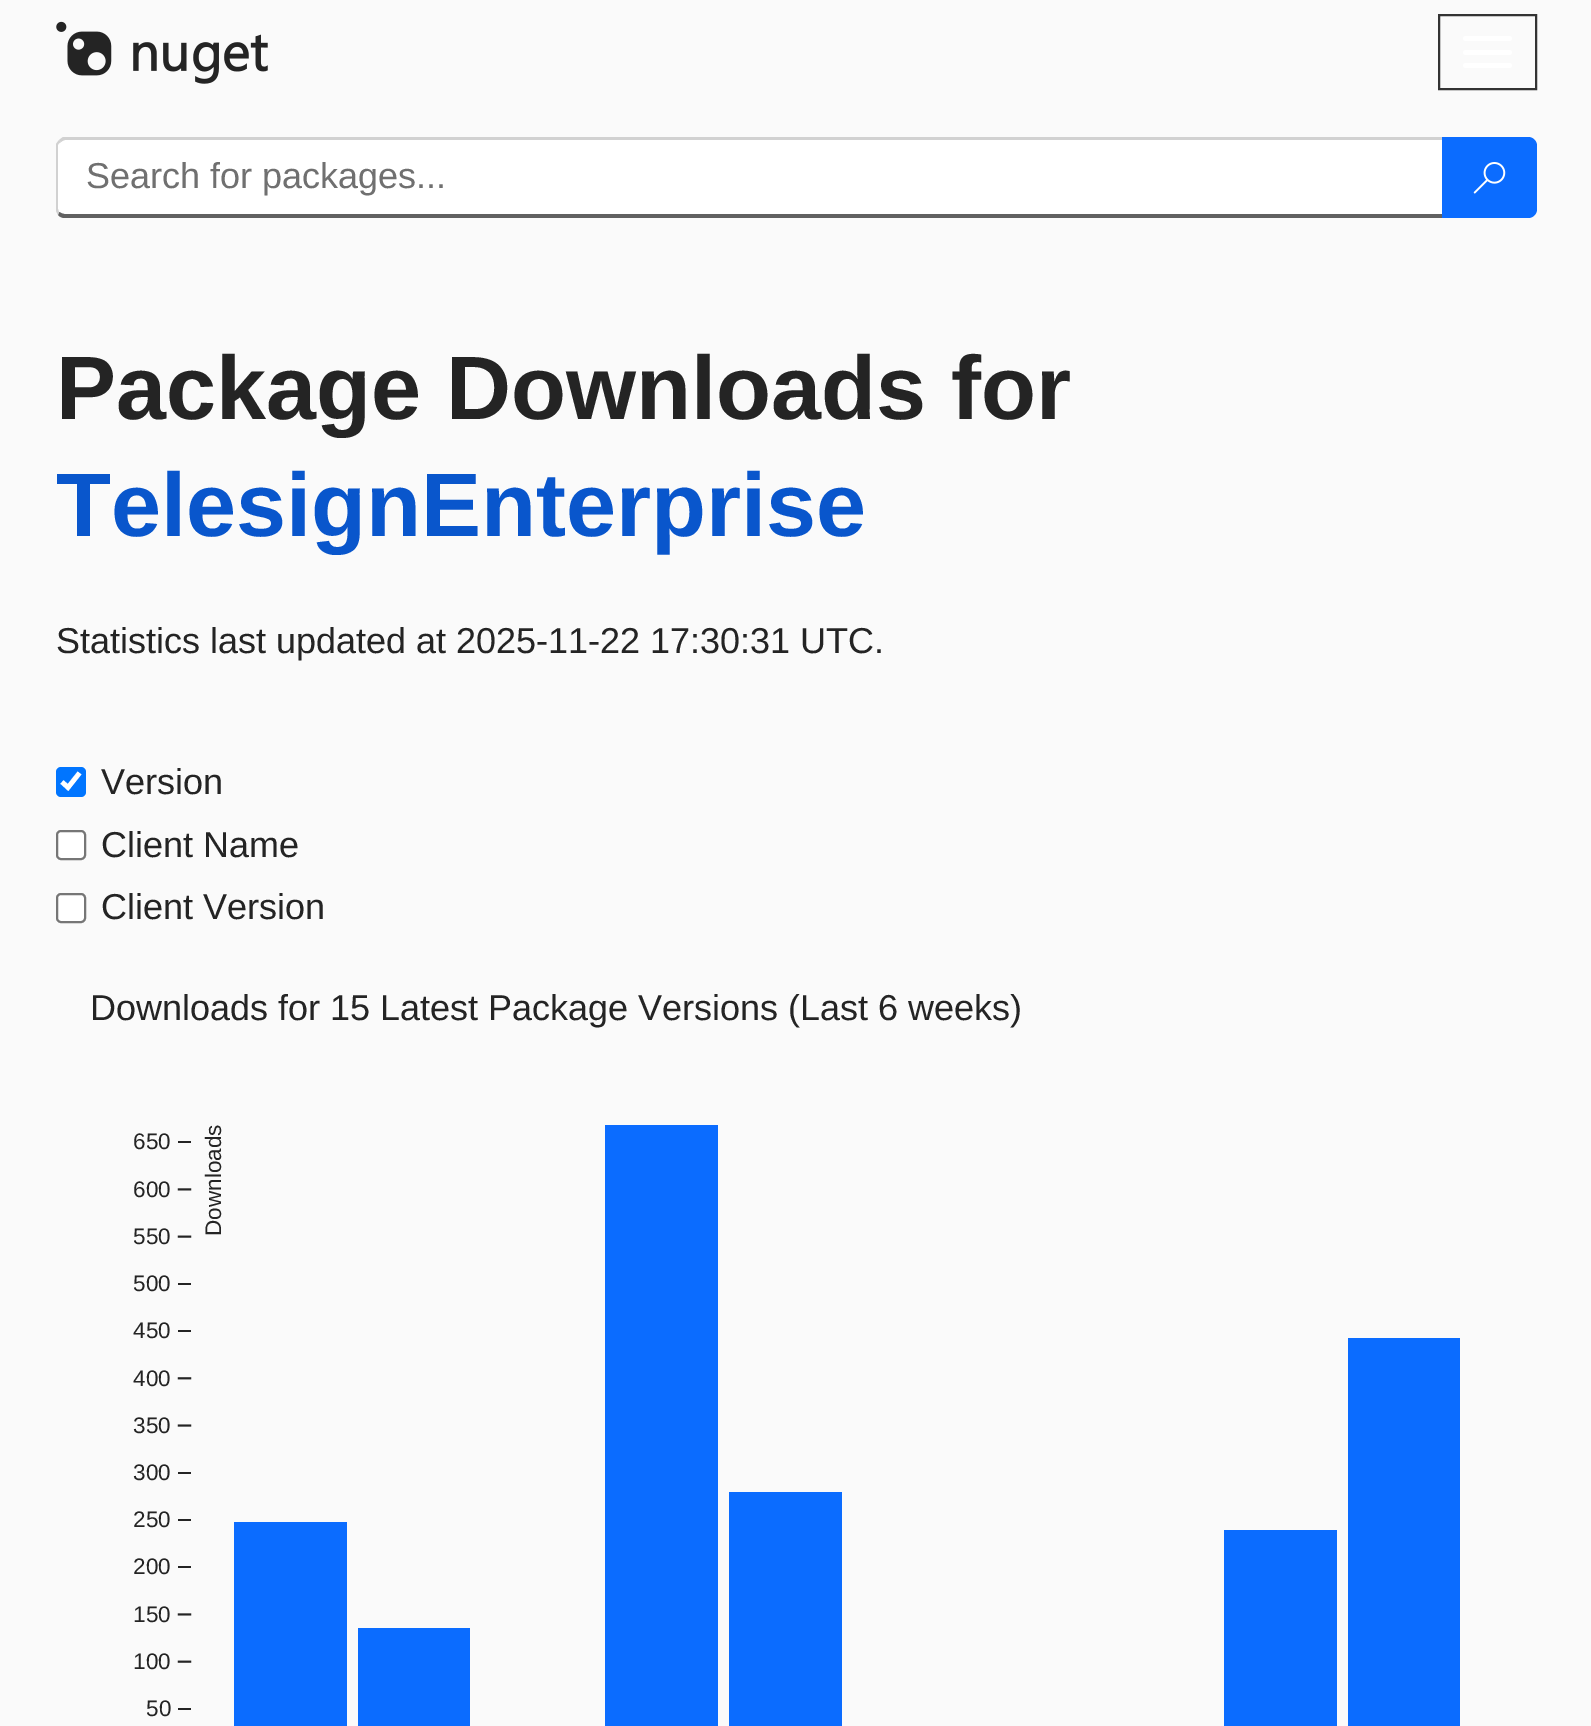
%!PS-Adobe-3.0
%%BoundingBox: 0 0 1591 1726
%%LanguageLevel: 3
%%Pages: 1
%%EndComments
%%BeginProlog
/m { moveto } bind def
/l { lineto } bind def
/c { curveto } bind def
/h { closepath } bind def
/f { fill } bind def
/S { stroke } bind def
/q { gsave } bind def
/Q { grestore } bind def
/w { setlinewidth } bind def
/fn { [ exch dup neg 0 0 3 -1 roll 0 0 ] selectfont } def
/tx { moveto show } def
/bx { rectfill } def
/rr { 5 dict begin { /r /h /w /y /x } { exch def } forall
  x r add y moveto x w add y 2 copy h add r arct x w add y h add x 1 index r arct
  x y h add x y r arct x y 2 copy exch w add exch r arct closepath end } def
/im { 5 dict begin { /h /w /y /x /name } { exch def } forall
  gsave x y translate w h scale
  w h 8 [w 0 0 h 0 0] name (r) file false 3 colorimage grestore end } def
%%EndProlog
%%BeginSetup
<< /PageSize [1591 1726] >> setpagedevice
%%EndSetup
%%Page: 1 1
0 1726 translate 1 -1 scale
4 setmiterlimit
0.98 setgray
0 0 1591 1726 bx
(image0.raw) 56 21 212 63 im
0.2 setgray
2 w
1439 15 97 74 rectstroke
1 setgray
1463 36 49 5 2.5 rr f
1463 50 49 5 2.5 rr f
1463 63 49 5 2.5 rr f
65 140 m 1442 140 l 1442 214 l 65 214 l 62 214 58 212 58 209 c 58 146 l 58 143 62 140 65 140 c h f
0.82 setgray
65 140 m 64 140 62 141 61 142 c 59 140 l 63 137 l 1444 137 l 1442 140 l h f
0.38 setgray
1444 217 m 1444 218 l 65 218 l 62 218 60 217 58 215 c 59 212 l 61 213 63 214 65 214 c 1442 214 l 1442 213 l h f
0.82 setgray
56 144 m 59 140 l 61 142 l 59 143 58 144 58 145 c 58 209 l 59 212 l 58 215 l 56 211 l h f
/LiberationSans-Regular 36 fn
0.439 setgray
(Search for packages...) 86 188 tx
0.043 0.424 1 setrgbcolor
1442 137 m 1528 137 l 1533 137 1537 141 1537 146 c 1537 209 l 1537 214 1533 218 1528 218 c 1442 218 l h f
(image1.raw) 1473 162 33 32 im
/LiberationSans-Bold 90 fn
0.141 setgray
(Package Downloads for) 56 419 tx
0.035 0.337 0.8 setrgbcolor
(TelesignEnterprise) 56 536 tx
/LiberationSans-Regular 36 fn
0.141 setgray
(Statistics last updated at 2025-11-22 17:30:31 UTC.) 56 653 tx
0 0.459 1 setrgbcolor
56 767 30 30 5 rr f
1 setgray
4.7 w
62 782 m 68 787.5 l 79.5 773 l S
0.141 setgray
(Version) 101 794 tx
1 setgray
57 831 28 28 4 rr q f Q
0.463 setgray
2 w
S
0.141 setgray
(Client Name) 101 857 tx
1 setgray
57 894 28 28 4 rr q f Q
0.463 setgray
S
0.141 setgray
(Client Version) 101 919 tx
(Downloads for 15 Latest Package Versions \(Last 6 weeks\)) 90 1020 tx
(image2.raw) 177 1125 1283 601 im
/LiberationSans-Regular 22.5 fn
(650) 133 1149 tx
q 221 1236 translate -90 rotate 0 0 m (Downloads) show Q
(600) 133 1197 tx
(550) 133 1244 tx
(500) 133 1291 tx
(450) 133 1338 tx
(400) 133 1386 tx
(350) 133 1433 tx
(300) 133 1480 tx
(250) 133 1527 tx
(200) 133 1574 tx
(150) 133 1622 tx
(100) 133 1669 tx
(50) 146 1716 tx
showpage
%%EOF
